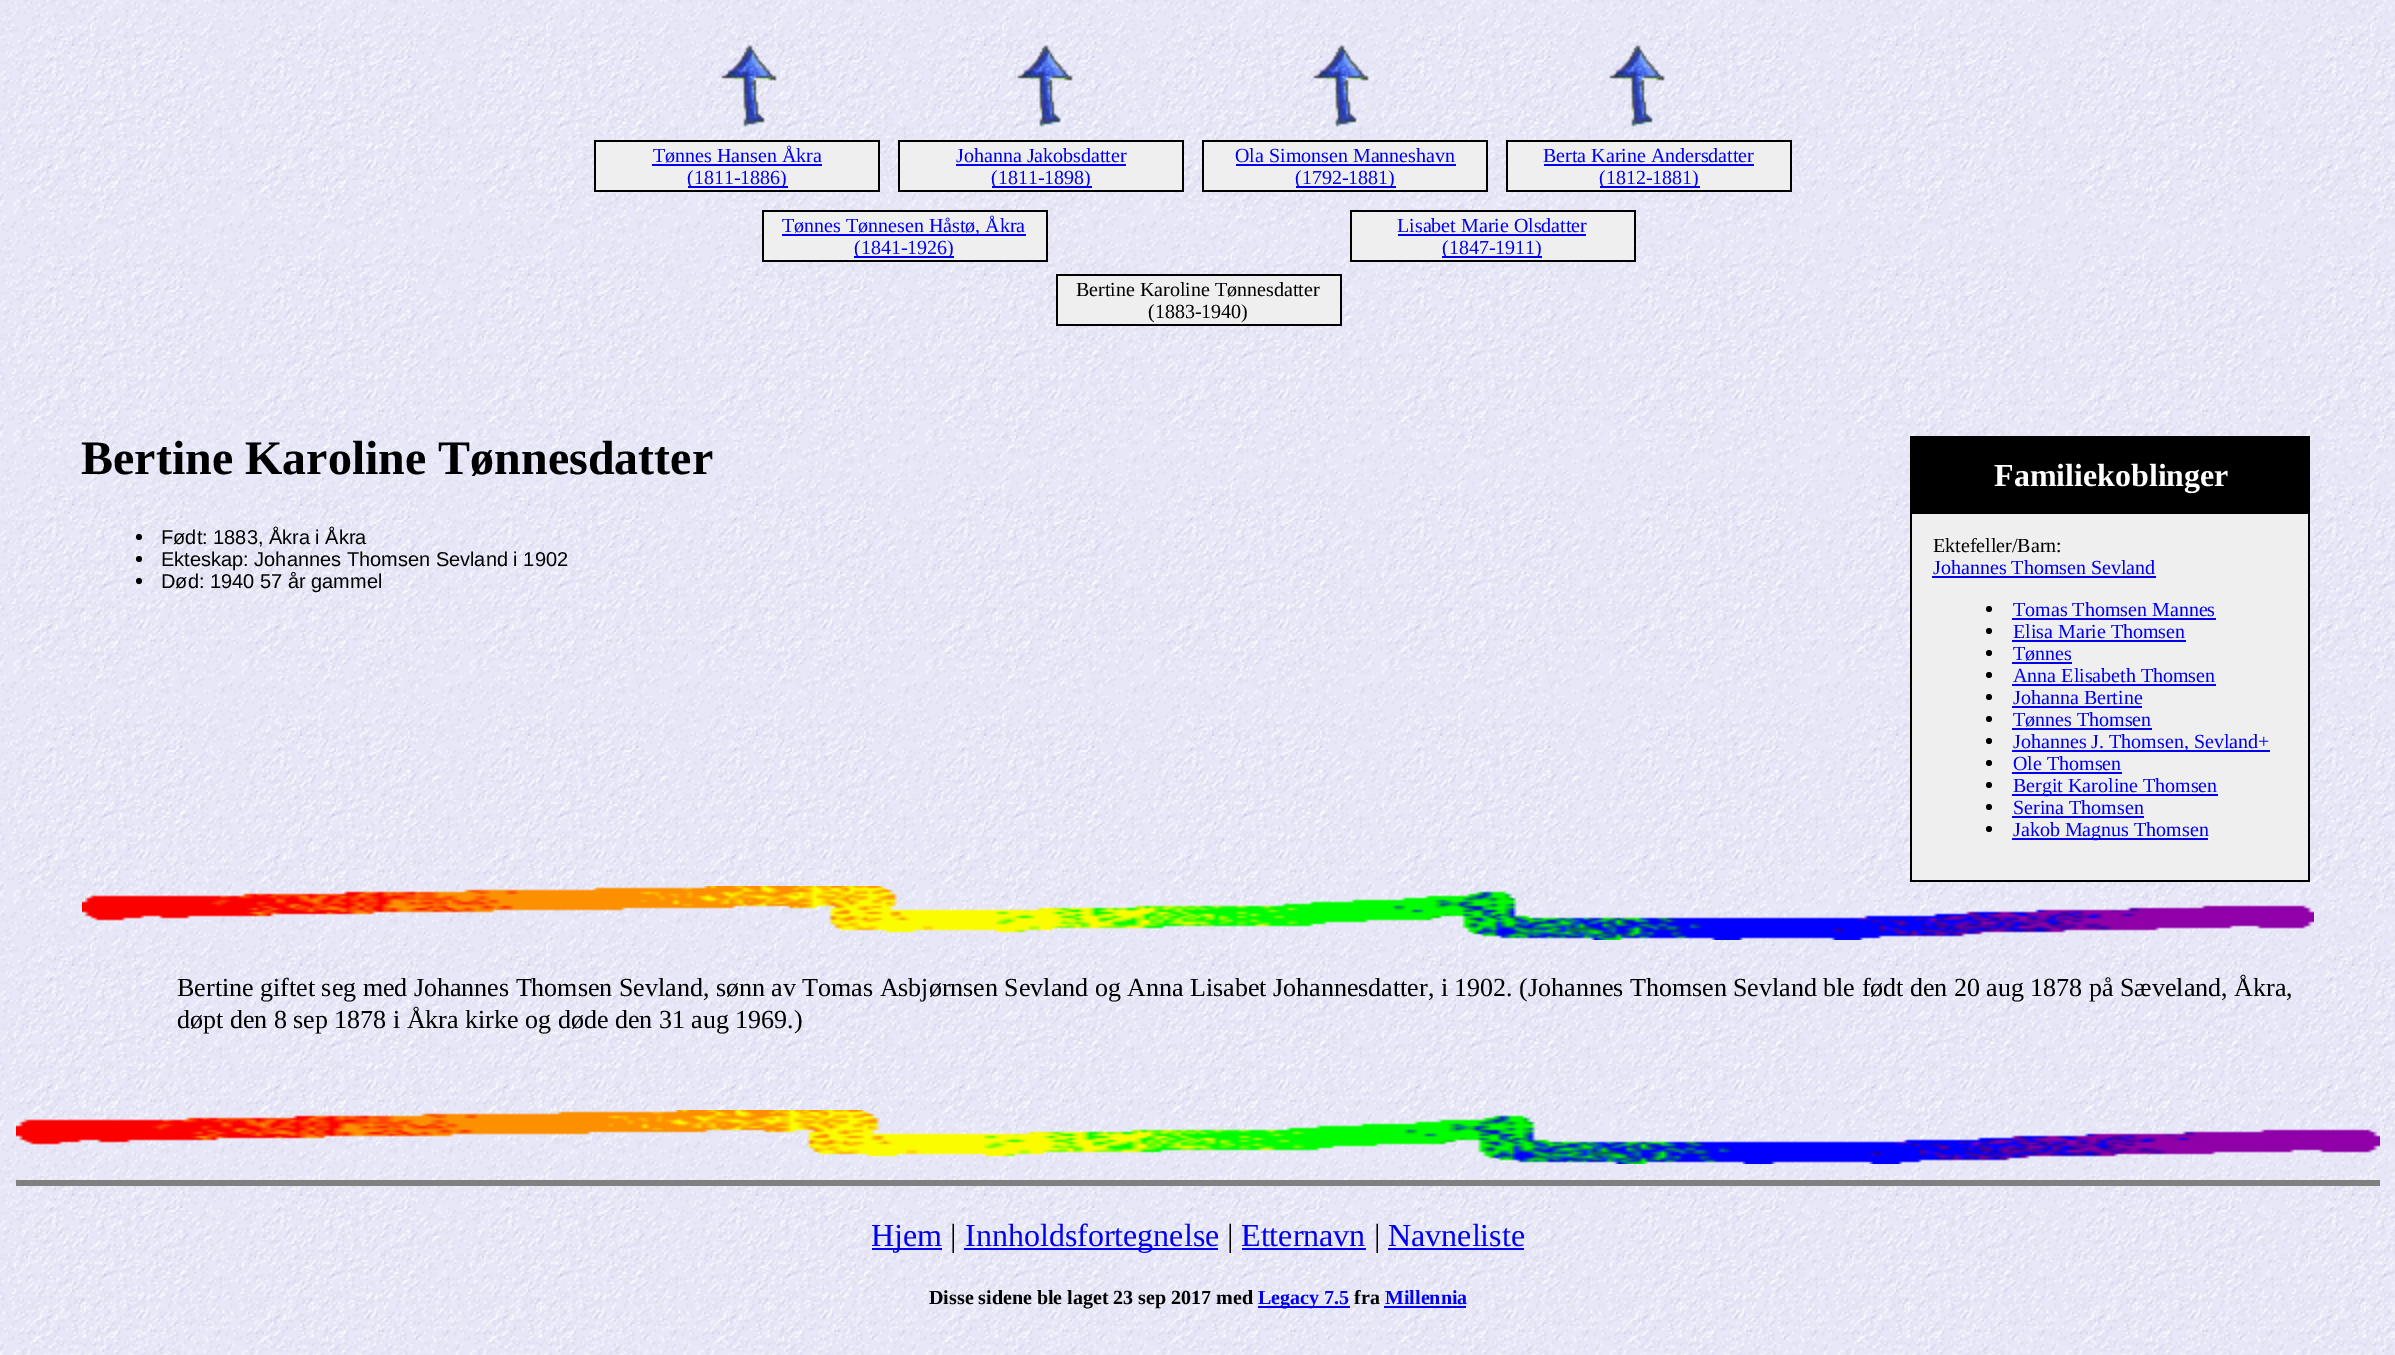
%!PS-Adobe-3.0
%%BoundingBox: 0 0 2395 1355
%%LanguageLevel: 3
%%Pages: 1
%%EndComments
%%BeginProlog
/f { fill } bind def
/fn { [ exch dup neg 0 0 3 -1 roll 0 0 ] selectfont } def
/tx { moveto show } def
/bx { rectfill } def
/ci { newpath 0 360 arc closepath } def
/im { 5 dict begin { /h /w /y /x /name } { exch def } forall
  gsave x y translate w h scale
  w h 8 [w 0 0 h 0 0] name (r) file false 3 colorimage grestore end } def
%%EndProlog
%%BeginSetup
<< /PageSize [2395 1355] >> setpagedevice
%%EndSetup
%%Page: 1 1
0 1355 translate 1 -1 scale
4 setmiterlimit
1 setgray
0 0 2395 1355 bx
(image0.raw) 0 0 2395 1355 im
(image1.raw) 721 43 56 84 im
(image2.raw) 1017 43 56 84 im
(image3.raw) 1313 44 56 83 im
(image4.raw) 1609 44 56 83 im
0 setgray
594 140 286 52 bx
0.937 setgray
596 142 282 48 bx
/LiberationSerif-Regular 20 fn
0 0 0.933 setrgbcolor
(Tønnes Hansen Åkra) 653 162 tx
652 164 170 2 bx
688 186 100 2 bx
(\(1811-1886\)) 687 184 tx
0 setgray
898 140 286 52 bx
0.937 setgray
900 142 282 48 bx
0 0 0.933 setrgbcolor
(Johanna Jakobsdatter) 956 162 tx
956 164 170 2 bx
992 186 100 2 bx
(\(1811-1898\)) 991 184 tx
0 setgray
1202 140 286 52 bx
0.937 setgray
1204 142 282 48 bx
0 0 0.933 setrgbcolor
(Ola Simonsen Manneshavn) 1235 162 tx
1236 164 220 2 bx
1296 186 100 2 bx
(\(1792-1881\)) 1295 184 tx
0 setgray
1506 140 286 52 bx
0.937 setgray
1508 142 282 48 bx
0 0 0.933 setrgbcolor
(Berta Karine Andersdatter) 1543 162 tx
1544 164 210 2 bx
1600 186 100 2 bx
(\(1812-1881\)) 1599 184 tx
0 setgray
762 210 286 52 bx
0.937 setgray
764 212 282 48 bx
0 0 0.933 setrgbcolor
782 234 244 2 bx
(Tønnes Tønnesen Håstø, Åkra) 782 232 tx
854 256 100 2 bx
(\(1841-1926\)) 854 254 tx
0 setgray
1350 210 286 52 bx
0.937 setgray
1352 212 282 48 bx
0 0 0.933 setrgbcolor
(Lisabet Marie Olsdatter) 1397 232 tx
1398 234 188 2 bx
1442 256 100 2 bx
(\(1847-1911\)) 1442 254 tx
0 setgray
1056 274 286 52 bx
0.937 setgray
1058 276 282 48 bx
0 setgray
(Bertine Karoline Tønnesdatter) 1076 296 tx
(\(1883-1940\)) 1148 318 tx
/LiberationSerif-Bold 48 fn
(Bertine Karoline Tønnesdatter) 81 474 tx
139 537 3 ci f
/LiberationSans-Regular 20 fn
(Født: 1883, Åkra i Åkra) 161 544 tx
139 559 3 ci f
(Ekteskap: Johannes Thomsen Sevland i 1902) 161 566 tx
139 581 3 ci f
(Død: 1940 57 år gammel) 161 588 tx
1910 436 400 446 bx
/LiberationSerif-Bold 32 fn
1 setgray
(Familiekoblinger) 1994 486 tx
0.937 setgray
1912 514 396 366 bx
/LiberationSerif-Regular 20 fn
0 setgray
(Ektefeller/Barn:) 1933 552 tx
0 0 0.933 setrgbcolor
(Johannes Thomsen Sevland) 1933 574 tx
1932 576 224 2 bx
0 setgray
1989 609 3 ci f
0 0 0.933 setrgbcolor
(Tomas Thomsen Mannes) 2013 616 tx
2012 618 204 2 bx
0 setgray
1989 631 3 ci f
0 0 0.933 setrgbcolor
(Elisa Marie Thomsen) 2013 638 tx
2012 640 174 2 bx
0 setgray
1989 653 3 ci f
0 0 0.933 setrgbcolor
(Tønnes) 2013 660 tx
2012 662 60 2 bx
0 setgray
1989 675 3 ci f
0 0 0.933 setrgbcolor
(Anna Elisabeth Thomsen) 2013 682 tx
2012 684 204 2 bx
0 setgray
1989 697 3 ci f
0 0 0.933 setrgbcolor
(Johanna Bertine) 2013 704 tx
2012 706 130 2 bx
0 setgray
1989 719 3 ci f
0 0 0.933 setrgbcolor
(Tønnes Thomsen) 2013 726 tx
2012 728 140 2 bx
0 setgray
1989 741 3 ci f
0 0 0.933 setrgbcolor
2012 750 258 2 bx
(Johannes J. Thomsen, Sevland+) 2013 748 tx
0 setgray
1989 763 3 ci f
0 0 0.933 setrgbcolor
(Ole Thomsen) 2013 770 tx
2012 772 110 2 bx
0 setgray
1989 785 3 ci f
0 0 0.933 setrgbcolor
2012 794 206 2 bx
(Bergit Karoline Thomsen) 2013 792 tx
0 setgray
1989 807 3 ci f
0 0 0.933 setrgbcolor
(Serina Thomsen) 2013 814 tx
2012 816 132 2 bx
0 setgray
1989 829 3 ci f
0 0 0.933 setrgbcolor
2012 838 196 2 bx
(Jakob Magnus Thomsen) 2013 836 tx
(image5.raw) 82 886 2232 54 im
/LiberationSerif-Regular 26 fn
0 setgray
(Bertine giftet seg med Johannes Thomsen Sevland, sønn av Tomas Asbjørnsen Sevland og Anna Lisabet Johannesdatter, i 1902. \(Johannes Thomsen Sevland ble født den 20 aug 1878 på Sæveland, Åkra,) 177 996 tx
(døpt den 8 sep 1878 i Åkra kirke og døde den 31 aug 1969.\)) 177 1028 tx
(image6.raw) 16 1110 2364 54 im
0.502 setgray
16 1180 2364 6 bx
0 0 0.933 setrgbcolor
872 1248 70 2 bx
/LiberationSerif-Regular 32 fn
(Hjem) 871 1246 tx
0 setgray
(|) 950 1246 tx
0 0 0.933 setrgbcolor
964 1248 254 2 bx
(Innholdsfortegnelse) 965 1246 tx
0 setgray
(|) 1227 1246 tx
0 0 0.933 setrgbcolor
(Etternavn) 1241 1246 tx
1242 1248 124 2 bx
0 setgray
(|) 1374 1246 tx
0 0 0.933 setrgbcolor
(Navneliste) 1388 1246 tx
1388 1248 136 2 bx
/LiberationSerif-Bold 20 fn
0 setgray
(Disse sidene ble laget 23 sep 2017 med) 929 1304 tx
0 0 0.933 setrgbcolor
1258 1306 92 2 bx
(Legacy 7.5) 1258 1304 tx
0 setgray
(fra) 1354 1304 tx
0 0 0.933 setrgbcolor
(Millennia) 1385 1304 tx
1384 1306 82 2 bx
showpage
%%EOF
